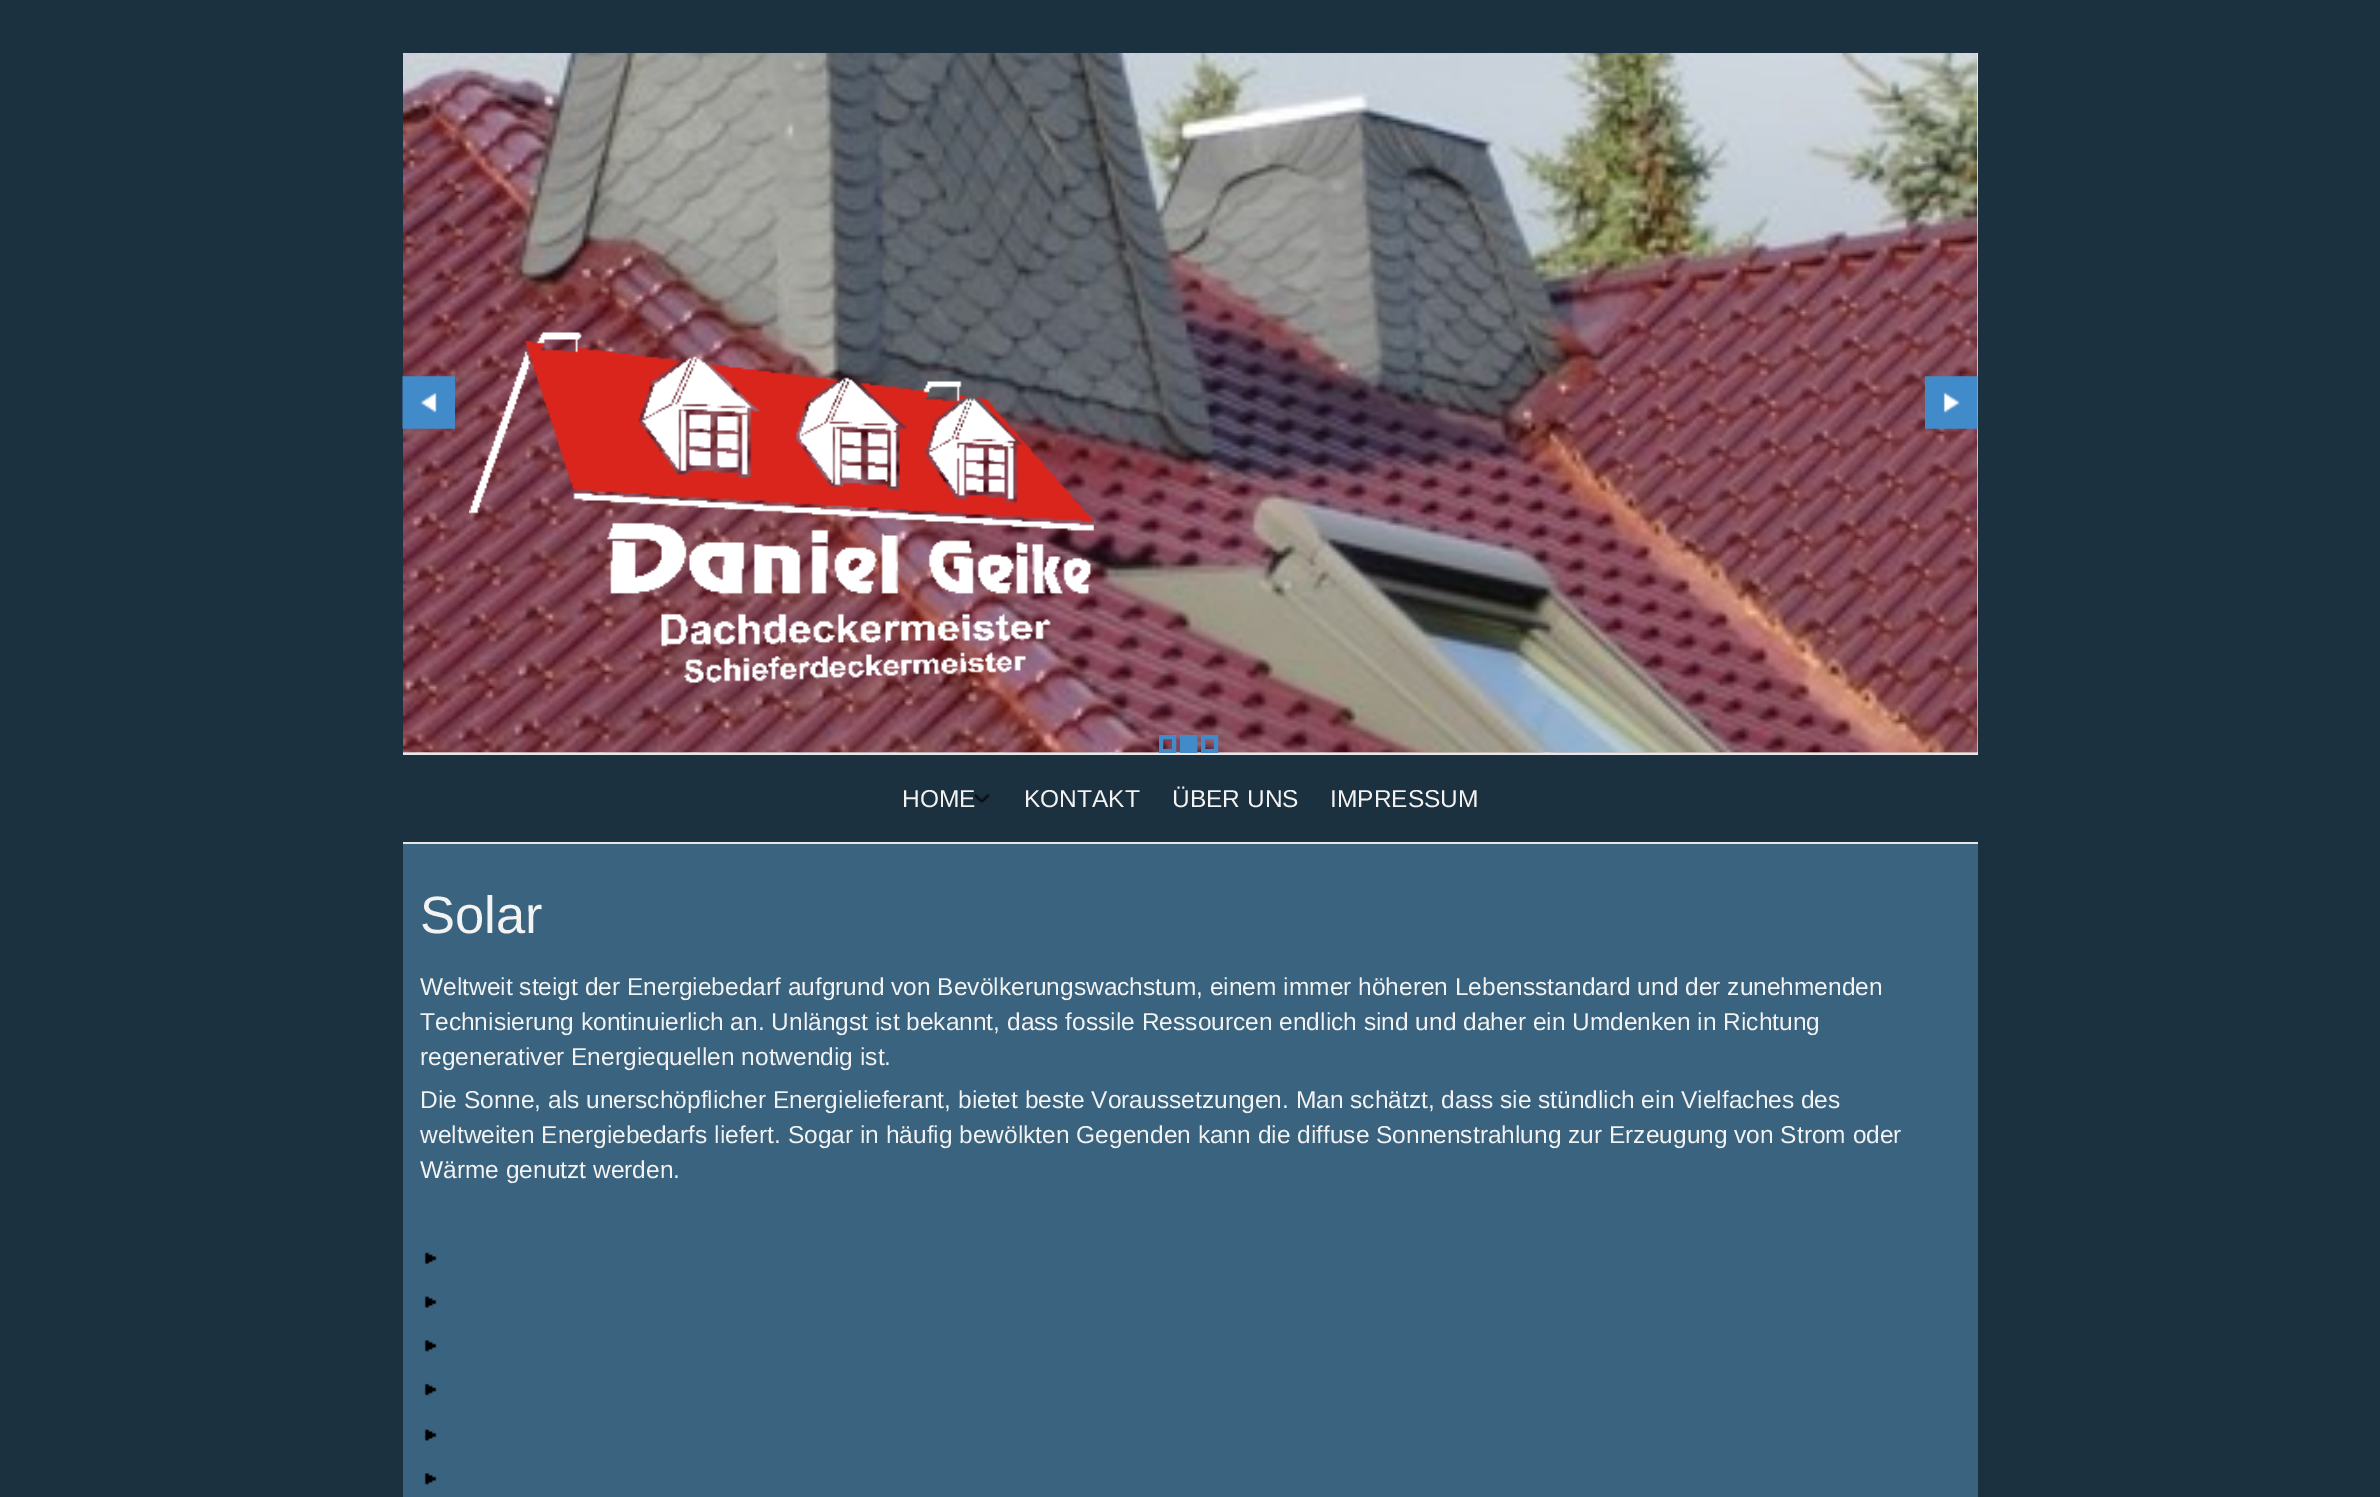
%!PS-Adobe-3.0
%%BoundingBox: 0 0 2380 1497
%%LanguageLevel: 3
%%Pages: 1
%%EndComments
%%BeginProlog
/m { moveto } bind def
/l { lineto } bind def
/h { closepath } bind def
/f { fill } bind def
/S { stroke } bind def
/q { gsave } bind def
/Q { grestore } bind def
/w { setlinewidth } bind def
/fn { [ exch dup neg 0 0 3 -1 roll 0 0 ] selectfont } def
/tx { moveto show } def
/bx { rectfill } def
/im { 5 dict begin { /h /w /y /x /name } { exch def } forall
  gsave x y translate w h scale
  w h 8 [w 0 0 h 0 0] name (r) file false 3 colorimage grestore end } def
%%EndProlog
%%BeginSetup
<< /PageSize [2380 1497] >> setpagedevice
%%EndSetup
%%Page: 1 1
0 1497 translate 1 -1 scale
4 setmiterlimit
0.11 0.192 0.247 setrgbcolor
0 0 2380 1497 bx
0.224 0.388 0.498 setrgbcolor
403 844 1575 653 bx
1 setgray
403 53 1575 700 bx
(image0.raw) 403 53 1575 700 im
(image1.raw) 403 53 1575 700 im
(image2.raw) 469 332 625 351 im
(image3.raw) 402 376 53 53 im
(image4.raw) 1925 376 53 53 im
0.259 0.545 0.792 setrgbcolor
4 w
1161 737 13 14 rectstroke
1182 737 m 1195 737 l 1195 751 l 1182 751 l h q f Q
S
1203 737 13 14 rectstroke
0.906 setgray
403 753 1575 2 bx
403 842 1575 2 bx
(image5.raw) 974 793 16 11 im
/LiberationSans-Regular 24.5 fn
0.953 setgray
(HOME) 902 807 tx
(KONTAKT) 1024 807 tx
(ÜBER UNS) 1172 807 tx
(IMPRESSUM) 1330 807 tx
/LiberationSans-Regular 52.5 fn
(Solar) 420 933 tx
/LiberationSans-Regular 24.5 fn
(Weltweit steigt der Energiebedarf aufgrund von Bevölkerungswachstum, einem immer höheren Lebensstandard und der zunehmenden) 420 995 tx
(Technisierung kontinuierlich an. Unlängst ist bekannt, dass fossile Ressourcen endlich sind und daher ein Umdenken in Richtung) 420 1030 tx
(regenerativer Energiequellen notwendig ist.) 420 1065 tx
(Die Sonne, als unerschöpflicher Energielieferant, bietet beste Voraussetzungen. Man schätzt, dass sie stündlich ein Vielfaches des) 420 1108 tx
(weltweiten Energiebedarfs liefert. Sogar in häufig bewölkten Gegenden kann die diffuse Sonnenstrahlung zur Erzeugung von Strom oder) 420 1143 tx
(Wärme genutzt werden.) 420 1178 tx
(image6.raw) 424 1252 13 12 im
(image7.raw) 424 1296 13 12 im
(image8.raw) 424 1340 13 12 im
(image9.raw) 424 1383 13 13 im
(image7.raw) 424 1429 13 12 im
(image8.raw) 424 1473 13 12 im
showpage
%%EOF
